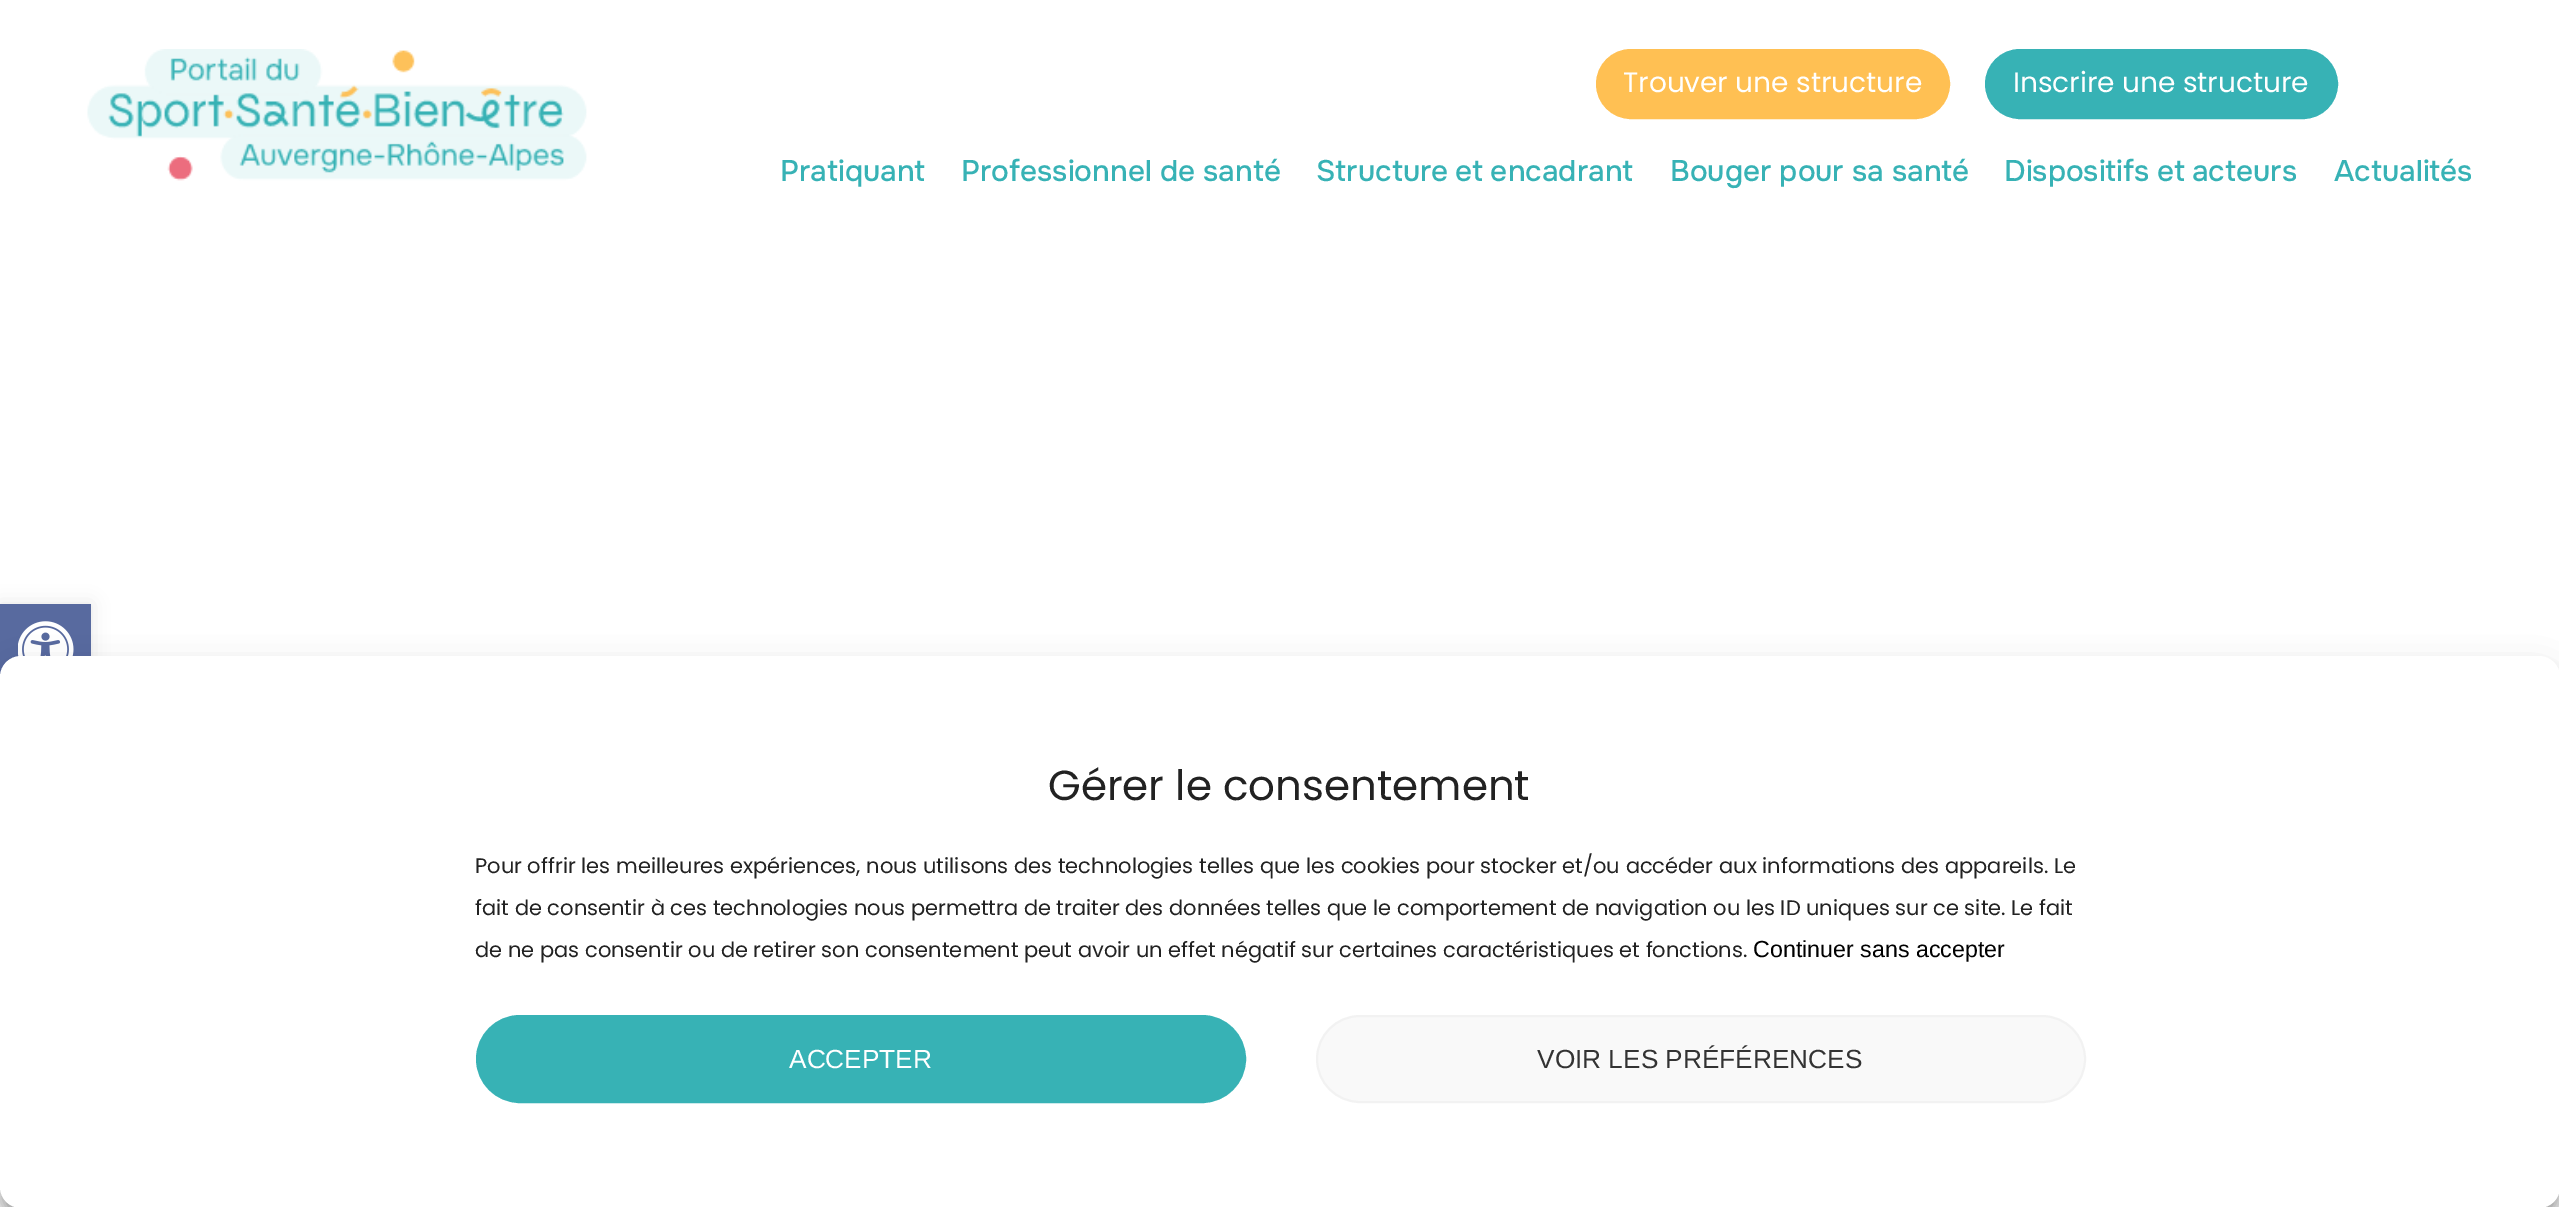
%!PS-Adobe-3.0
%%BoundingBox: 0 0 2559 1207
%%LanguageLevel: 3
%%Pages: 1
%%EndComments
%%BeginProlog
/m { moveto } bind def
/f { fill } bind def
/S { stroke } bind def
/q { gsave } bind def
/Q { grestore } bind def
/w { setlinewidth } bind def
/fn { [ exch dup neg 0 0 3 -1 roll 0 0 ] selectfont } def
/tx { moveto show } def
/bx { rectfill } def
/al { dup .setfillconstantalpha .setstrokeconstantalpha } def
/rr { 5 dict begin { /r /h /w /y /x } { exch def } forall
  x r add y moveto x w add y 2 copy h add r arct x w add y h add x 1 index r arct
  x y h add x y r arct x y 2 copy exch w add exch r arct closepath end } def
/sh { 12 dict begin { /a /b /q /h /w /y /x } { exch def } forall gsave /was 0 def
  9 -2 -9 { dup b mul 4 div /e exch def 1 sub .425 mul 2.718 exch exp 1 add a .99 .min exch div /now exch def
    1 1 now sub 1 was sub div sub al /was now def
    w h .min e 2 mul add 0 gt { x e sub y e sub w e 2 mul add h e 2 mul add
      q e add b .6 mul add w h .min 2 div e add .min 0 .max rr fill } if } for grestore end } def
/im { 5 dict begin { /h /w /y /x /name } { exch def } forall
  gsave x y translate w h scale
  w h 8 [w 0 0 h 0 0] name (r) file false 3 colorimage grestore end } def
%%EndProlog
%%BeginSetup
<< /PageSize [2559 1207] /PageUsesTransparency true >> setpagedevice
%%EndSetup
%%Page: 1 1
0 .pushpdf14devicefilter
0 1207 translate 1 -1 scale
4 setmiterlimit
1 setgray
0 0 2559 1207 bx
(image0.raw) 87 49 500 132 im
1 0.753 0.325 setrgbcolor
1597 50 352 68 34 rr q f Q
2 w
S
/Poppins-Regular 28 fn
1 setgray
(Trouver une structure) 1623 92 tx
0.216 0.698 0.71 setrgbcolor
1986 50 351 68 34 rr q f Q
S
1 setgray
(Inscrire une structure) 2013 92 tx
/Onest-Medium 29.75 fn
0.216 0.698 0.71 setrgbcolor
(Pratiquant) 780 181 tx
(Professionnel de santé) 961 181 tx
1316 181 m -1 0 32 (Structure et encadrant) widthshow
(Bouger pour sa santé) 1670 181 tx
2004 181 m -1 0 32 (Dispositifs et acteurs) widthshow
(Actualités) 2334 181 tx
0 setgray
0 604 91 91 0 9 0.1 sh
0.345 0.416 0.624 setrgbcolor
0 604 91 73 bx
(image1.raw) 18 621 56 36 im
0 setgray
0 667 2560 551 21 5 0.23 sh
0 674 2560 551 21 17.5 0.19 sh
1 setgray
0 656 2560 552 21 rr f
/Poppins-Regular 42 fn
0.133 setgray
(Gérer le consentement) 1048 800 tx
/Poppins-Regular 21 fn
(Pour offrir les meilleures expériences, nous utilisons des technologies telles que les cookies pour stocker et/ou accéder aux informations des appareils. Le) 475 873 tx
(fait de consentir à ces technologies nous permettra de traiter des données telles que le comportement de navigation ou les ID uniques sur ce site. Le fait) 475 915 tx
(de ne pas consentir ou de retirer son consentement peut avoir un effet négatif sur certaines caractéristiques et fonctions.) 475 957 tx
/LiberationSans-Regular 23.25 fn
0 setgray
(Continuer sans accepter) 1753 957 tx
0.216 0.698 0.71 setrgbcolor
477 1016 768 86 43 rr q f Q
S
/LiberationSans-Regular 26.25 fn
1 setgray
(ACCEPTER) 789 1068 tx
0.976 setgray
1317 1016 768 86 43 rr q f Q
0.949 setgray
S
0.2 setgray
(VOIR LES PRÉFÉRENCES) 1537 1068 tx
.poppdf14devicefilter showpage
%%EOF
